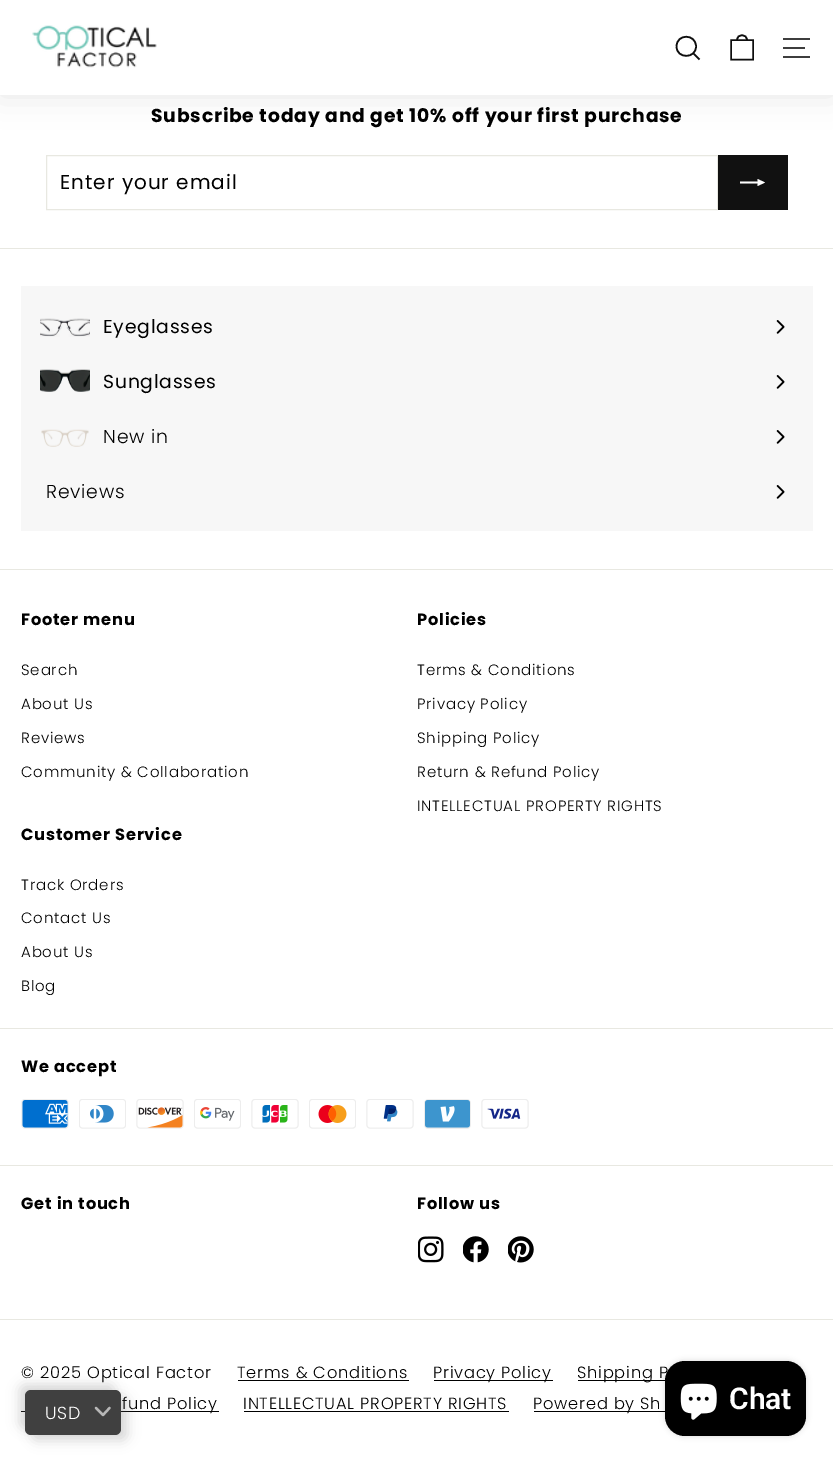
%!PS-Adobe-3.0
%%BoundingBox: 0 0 833 1462
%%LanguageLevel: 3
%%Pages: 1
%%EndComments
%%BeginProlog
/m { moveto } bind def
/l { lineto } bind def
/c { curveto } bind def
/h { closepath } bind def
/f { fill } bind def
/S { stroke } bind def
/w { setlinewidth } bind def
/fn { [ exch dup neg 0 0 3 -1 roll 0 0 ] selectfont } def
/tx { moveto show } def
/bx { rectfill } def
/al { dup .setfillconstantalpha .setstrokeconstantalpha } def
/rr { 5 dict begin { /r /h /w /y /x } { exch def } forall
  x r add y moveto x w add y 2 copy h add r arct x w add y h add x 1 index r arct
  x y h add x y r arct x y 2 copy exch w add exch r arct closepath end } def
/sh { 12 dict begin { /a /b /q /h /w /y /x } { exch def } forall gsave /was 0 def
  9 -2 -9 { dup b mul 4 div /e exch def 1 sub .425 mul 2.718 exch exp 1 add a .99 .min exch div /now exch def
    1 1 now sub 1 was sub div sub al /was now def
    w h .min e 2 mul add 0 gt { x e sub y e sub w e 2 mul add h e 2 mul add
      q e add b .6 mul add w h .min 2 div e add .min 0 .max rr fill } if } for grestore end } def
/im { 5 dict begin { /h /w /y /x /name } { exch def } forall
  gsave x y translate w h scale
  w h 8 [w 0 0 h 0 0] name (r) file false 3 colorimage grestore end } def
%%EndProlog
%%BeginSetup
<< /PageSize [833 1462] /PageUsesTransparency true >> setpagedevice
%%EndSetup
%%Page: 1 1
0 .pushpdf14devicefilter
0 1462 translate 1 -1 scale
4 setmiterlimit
1 setgray
0 0 833 1462 bx
0.969 setgray
21 286 792 245 bx
0 setgray
0 0 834 95 0 15.5 0.1 sh
1 setgray
0 0 833 95 bx
(image0.raw) 32 25 125 43 im
0.055 setgray
1.6 w
696 46.5 m 696 59 676.5 59 676.5 46.5 c 676.5 33.5 696 33.5 696 46.5 c h 699.5 59.5 m 693.5 53.5 l S
737 40 m 737 33.5 747 33.5 747 40 c 731 40 m 753 40 l 753 59.5 l 731 59.5 l h S
0.243 setgray
783 38 27 2 bx
783 47 22 2 bx
783 56 27 2 bx
/Poppins-Bold 18.75 fn
0 setgray
151 122 m 0.8 0 (Subscribe today and get 10% off your first purchase) ashow
0.91 0.91 0.882 setrgbcolor
1 w
46.5 155.5 671 54 rectstroke
/Poppins-Regular 20 fn
0 setgray
60 189 m 1 0 (Enter your email) ashow
0.067 setgray
718 155 70 55 bx
1 setgray
740 183.5 m 740 181.5 l 757.5 181.5 l 757.5 179 l 765 182.5 l 757.5 186 l 757.5 183.5 l h f
0.91 0.91 0.882 setrgbcolor
0 248 833 1 bx
(image1.raw) 40 318 50 19 im
/Poppins-Regular 18.75 fn
0 setgray
103 333 m 0.8 0 (Eyeglasses) ashow
(image2.raw) 776 320 9 14 im
(image3.raw) 40 369 50 23 im
103 388 m 0.8 0 (Sunglasses) ashow
(image2.raw) 776 375 9 14 im
(image4.raw) 41 429 48 18 im
/Poppins-Light 18.75 fn
103 443 m 0.8 0 (New in) ashow
(image2.raw) 776 430 9 14 im
46 498 m 0.8 0 (Reviews) ashow
(image2.raw) 776 485 9 14 im
0.91 0.91 0.882 setrgbcolor
0 569 833 1 bx
/Poppins-Bold 16.25 fn
0 setgray
21 625 m 0.8 0 (Footer menu) ashow
/Poppins-Light 15 fn
21 675 m 0.8 0 (Search) ashow
21 709 m 0.8 0 (About Us) ashow
21 743 m 0.8 0 (Reviews) ashow
21 777 m 0.8 0 (Community & Collaboration) ashow
/Poppins-Bold 16.25 fn
417 625 m 0.8 0 (Policies) ashow
/Poppins-Light 15 fn
417 675 m 0.8 0 (Terms & Conditions) ashow
417 709 m 0.8 0 (Privacy Policy) ashow
417 743 m 0.8 0 (Shipping Policy) ashow
417 777 m 0.8 0 (Return & Refund Policy) ashow
417 811 m 0.8 0 (INTELLECTUAL PROPERTY RIGHTS) ashow
/Poppins-Bold 16.25 fn
21 840 m 0.8 0 (Customer Service) ashow
/Poppins-Light 15 fn
21 890 m 0.8 0 (Track Orders) ashow
21 923 m 0.8 0 (Contact Us) ashow
21 957 m 0.8 0 (About Us) ashow
21 991 m 0.8 0 (Blog) ashow
0.91 0.91 0.882 setrgbcolor
0 1028 833 1 bx
/Poppins-Bold 16.25 fn
0 setgray
21 1072 m 0.8 0 (We accept) ashow
(image5.raw) 21 1099 48 30 im
(image6.raw) 79 1099 47 30 im
(image7.raw) 136 1099 48 30 im
(image8.raw) 194 1099 47 30 im
(image9.raw) 251 1099 48 30 im
(image10.raw) 309 1099 47 30 im
(image11.raw) 366 1099 48 30 im
(image12.raw) 424 1099 47 30 im
(image13.raw) 481 1099 48 30 im
0.91 0.91 0.882 setrgbcolor
0 1165 833 1 bx
0 setgray
21 1209 m 0.8 0 (Get in touch) ashow
417 1209 m 0.8 0 (Follow us) ashow
(image14.raw) 418 1236 26 27 im
(image15.raw) 463 1236 26 27 im
(image16.raw) 508 1236 26 27 im
0.91 0.91 0.882 setrgbcolor
0 1319 833 1 bx
/Poppins-Light 16.25 fn
0 setgray
21 1378 m 0.8 0 (© 2025 Optical Factor) ashow
237 1378 m 0.8 0 (Terms & Conditions) ashow
238 1380 171 1 bx
434 1380 119 1 bx
433 1378 m 0.8 0 (Privacy Policy) ashow
578 1380 88 1 bx
577 1378 m 0.8 0 (Shipping P) ashow
21 1411 198 1 bx
122 1409 m 0.8 0 (fund Policy) ashow
243 1409 m 0.8 0 (INTELLECTUAL PROPERTY RIGHTS) ashow
244 1411 265 1 bx
534 1411 131 1 bx
533 1409 m 0.8 0 (Powered by Sh) ashow
665 1361 141 75 20 3 0.15 sh
665 1361 141 75 20 rr f
(image17.raw) 680 1383 37 37 im
/Roboto-SemiBold 30 fn
1 setgray
(Chat) 729 1409 tx
0.38 setgray
19 1384 96 45 6 6 0.24 sh
31 1396 97 45 6 6 0.24 sh
0.251 setgray
25 1390 96 45 6 rr f
/Poppins-Light 17.5 fn
1 setgray
45 1419 m 0.8 0 (USD) ashow
0.718 setgray
2.3 w
1 setlinecap
1 setlinejoin
96 1408 m 103 1415 l 109.5 1408 l S
.poppdf14devicefilter showpage
%%EOF
